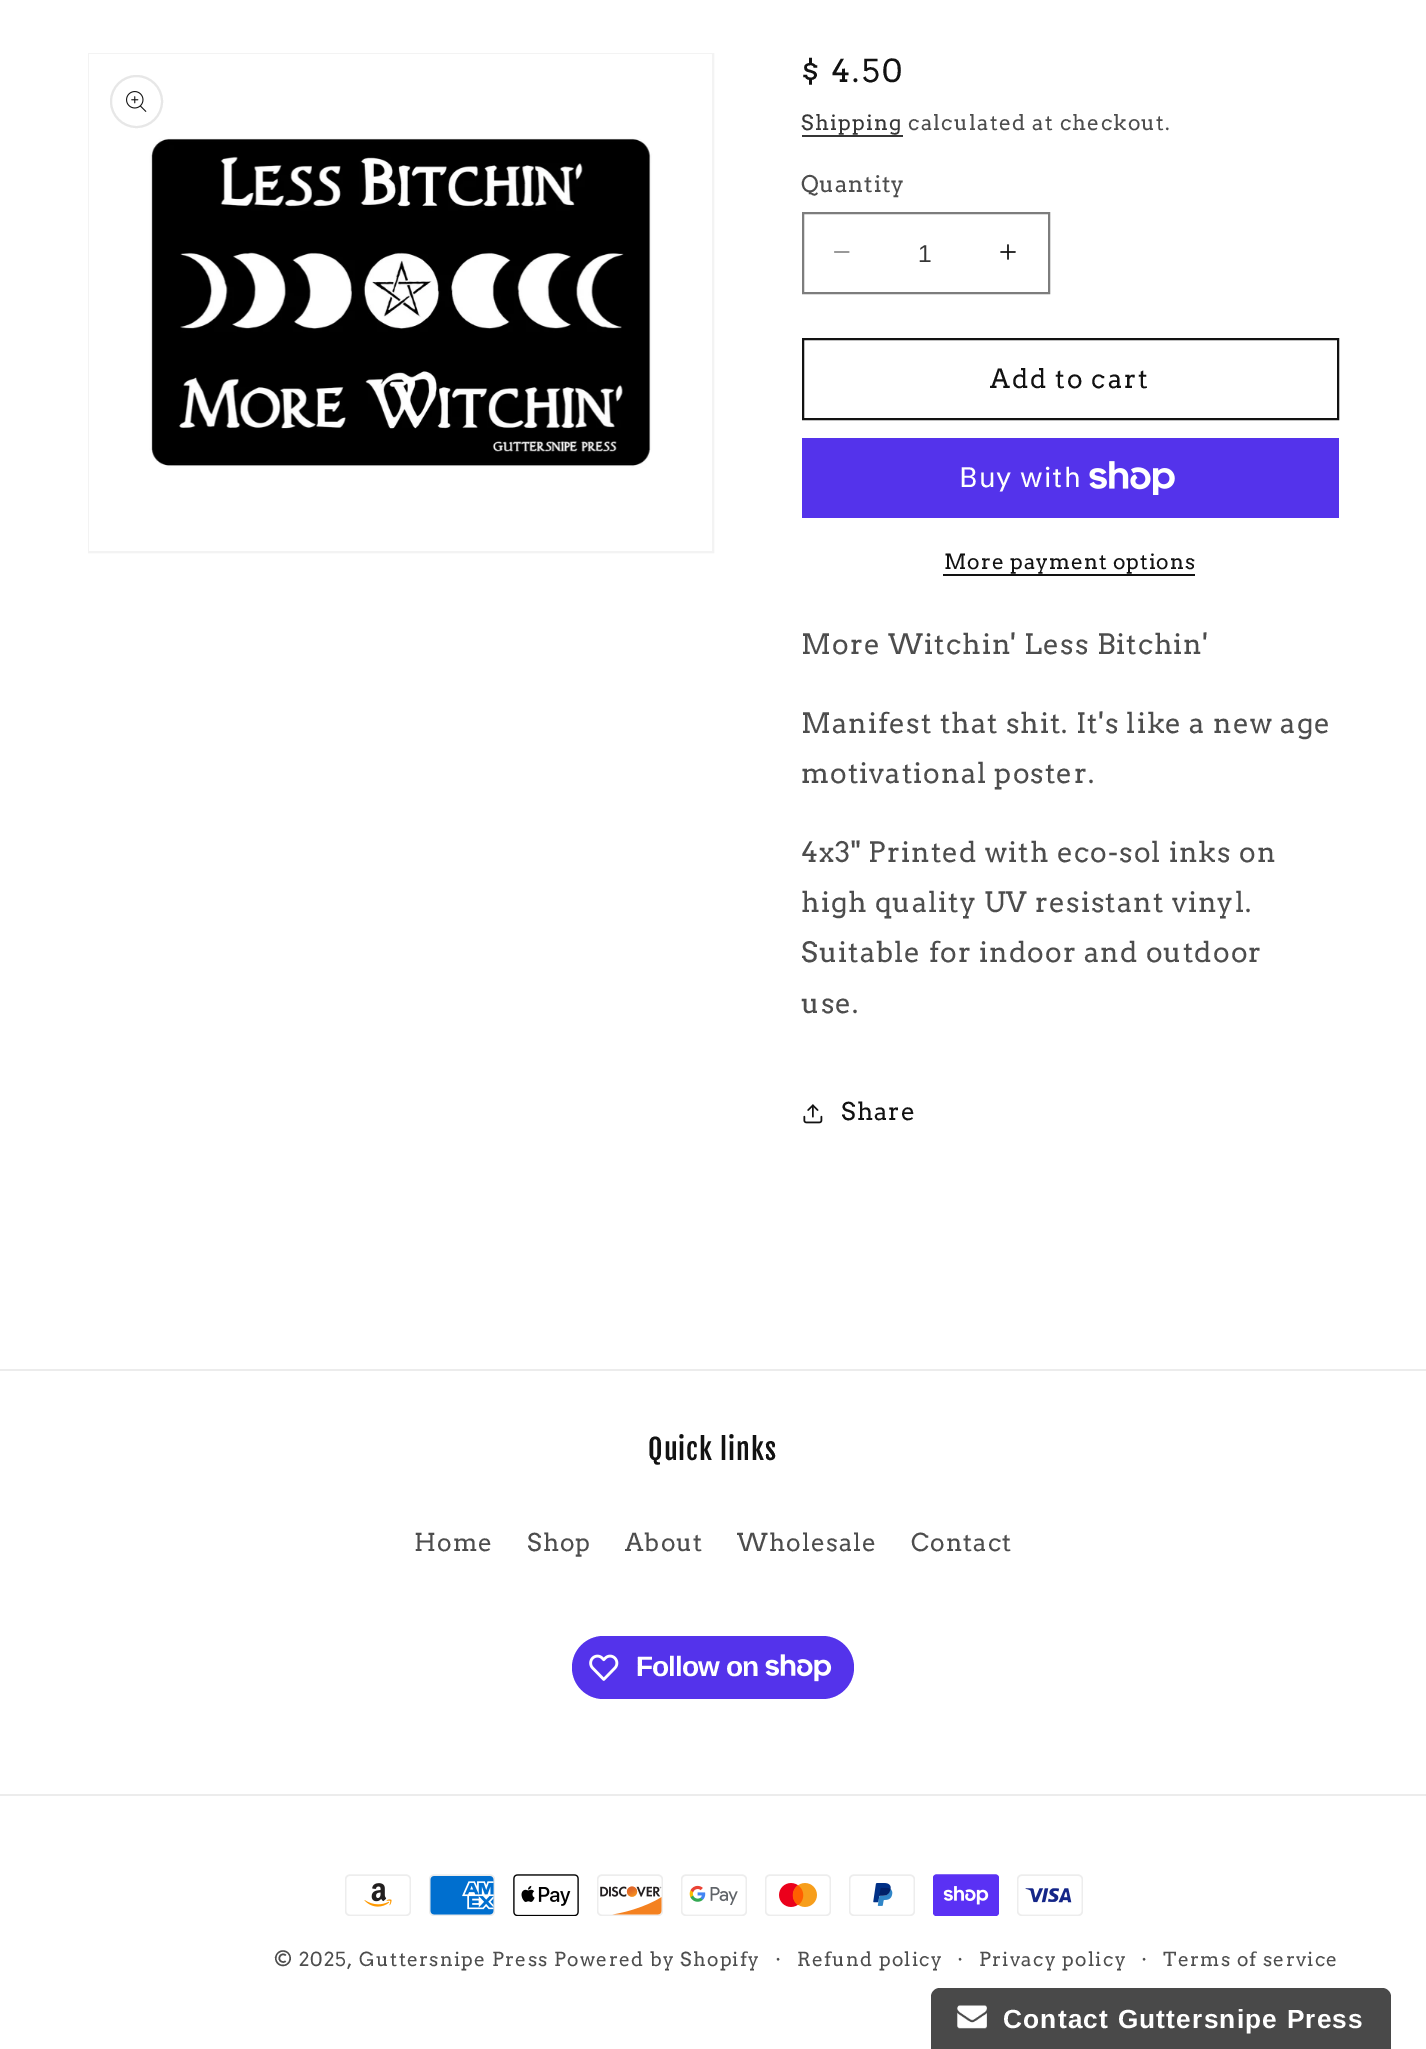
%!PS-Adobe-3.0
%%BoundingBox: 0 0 1426 2049
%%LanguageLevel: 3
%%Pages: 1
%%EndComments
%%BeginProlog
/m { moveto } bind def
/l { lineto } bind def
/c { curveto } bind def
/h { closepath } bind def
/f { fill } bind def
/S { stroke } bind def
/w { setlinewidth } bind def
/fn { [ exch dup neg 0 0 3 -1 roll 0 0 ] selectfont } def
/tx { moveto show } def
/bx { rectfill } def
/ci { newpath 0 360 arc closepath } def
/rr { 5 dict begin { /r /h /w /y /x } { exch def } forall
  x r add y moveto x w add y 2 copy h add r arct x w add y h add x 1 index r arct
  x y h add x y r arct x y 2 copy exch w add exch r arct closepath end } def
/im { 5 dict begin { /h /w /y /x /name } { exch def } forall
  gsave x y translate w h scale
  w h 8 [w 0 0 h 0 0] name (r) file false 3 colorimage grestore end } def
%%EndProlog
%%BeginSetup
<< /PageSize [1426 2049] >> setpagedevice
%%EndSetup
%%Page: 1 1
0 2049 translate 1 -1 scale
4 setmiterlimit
1 setgray
0 0 1426 2049 bx
0.953 setgray
2 w
89 54 624 498 rectstroke
(image0.raw) 89 54 623 497 im
0.906 setgray
136.5 101.5 25.5 ci S
(image1.raw) 126 91 21 21 im
/Arvo-Regular 31.5 fn
0.071 setgray
801 82 m 2.25 0 ($ 4.50) ashow
/Arvo-Regular 21 fn
0.212 setgray
801 130 m 1.2 0 (Shipping) ashow
802 135 101 2 bx
0.302 setgray
908 130 m 1.2 0 (calculated at checkout.) ashow
/Arvo-Regular 22.75 fn
801 192 m 0.75 0 (Quantity) ashow
(image2.raw) 834 251 16 2 im
(image3.raw) 1000 244 16 16 im
0.49 setgray
803 213 246 80 rectstroke
/LiberationSans-Regular 24.5 fn
0.212 setgray
(1) 918 262 tx
0.071 setgray
803 339 535 80 rectstroke
/Arvo-Regular 26.25 fn
990 388 m 1.75 0 (Add to cart) ashow
0.329 0.2 0.922 setrgbcolor
802 438 537 80 bx
/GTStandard-Regular 28 fn
1 setgray
959 487 m 1.05 0 (Buy with) ashow
(image4.raw) 1089 461 86 34 im
/Arvo-Regular 21 fn
0.071 setgray
944 569 m 0.9 0 (More payment options) ashow
943 574 252 2 bx
/Arvo-Regular 28 fn
0.302 setgray
801 654 m 1.05 0 (More Witchin' Less Bitchin') ashow
801 733 m 1.05 0 (Manifest that shit. It's like a new age) ashow
801 783 m 1.05 0 (motivational poster.) ashow
801 862 m 1.05 0 (4x3" Printed with eco-sol inks on) ashow
801 912 m 1.05 0 (high quality UV resistant vinyl.) ashow
801 962 m 1.05 0 (Suitable for indoor and outdoor) ashow
801 1013 m 1.05 0 (use.) ashow
(image5.raw) 803 1104 20 20 im
/Arvo-Regular 24.5 fn
0.071 setgray
841 1120 m 1.05 0 (Share) ashow
0.925 setgray
0 1369 1426 2 bx
/FjallaOne-Regular 28 fn
0.071 setgray
648 1460 m 1.05 0 (Quick links) ashow
/Arvo-Regular 24.5 fn
0.302 setgray
414 1551 m 1.05 0 (Home) ashow
527 1551 m 1.05 0 (Shop) ashow
625 1551 m 1.05 0 (About) ashow
737 1551 m 1.05 0 (Wholesale) ashow
911 1551 m 1.05 0 (Contact) ashow
0.329 0.2 0.922 setrgbcolor
572 1636 282 63 31.5 rr f
(image6.raw) 589 1654 30 27 im
/LiberationSans-Bold 28 fn
1 setgray
636 1676 m -0.9 0 (Follow on) ashow
(image7.raw) 765 1654 67 28 im
0.925 setgray
0 1794 1426 2 bx
(image8.raw) 345 1874 66 42 im
(image9.raw) 429 1874 66 42 im
(image10.raw) 513 1874 66 42 im
(image11.raw) 597 1874 66 42 im
(image12.raw) 681 1874 66 42 im
(image13.raw) 765 1874 66 42 im
(image14.raw) 849 1874 66 42 im
(image15.raw) 933 1874 66 42 im
(image16.raw) 1017 1874 66 42 im
/Arvo-Regular 19.25 fn
0.302 setgray
274 1966 m 1.2 0 (© 2025, Guttersnipe Press Powered by Shopify) ashow
/Arvo-Regular 21 fn
775 1966 m 1.2 0 (·) ashow
/Arvo-Regular 19.25 fn
797 1966 m 1.2 0 (Refund policy) ashow
/Arvo-Regular 21 fn
957 1966 m 1.2 0 (·) ashow
/Arvo-Regular 19.25 fn
979 1966 m 1.2 0 (Privacy policy) ashow
/Arvo-Regular 21 fn
1141 1966 m 1.2 0 (·) ashow
/Arvo-Regular 19.25 fn
1163 1966 m 1.2 0 (Terms of service) ashow
0.286 setgray
940 1988 m 1382 1988 l 1387 1988 1391 1992 1391 1997 c 1391 2049 l 931 2049 l 931 1997 l 931 1992 935 1988 940 1988 c h f
(image17.raw) 957 2005 30 24 im
/LiberationSans-Bold 26.25 fn
1 setgray
1003 2028 m 1.2 0 (Contact Guttersnipe Press) ashow
showpage
%%EOF
